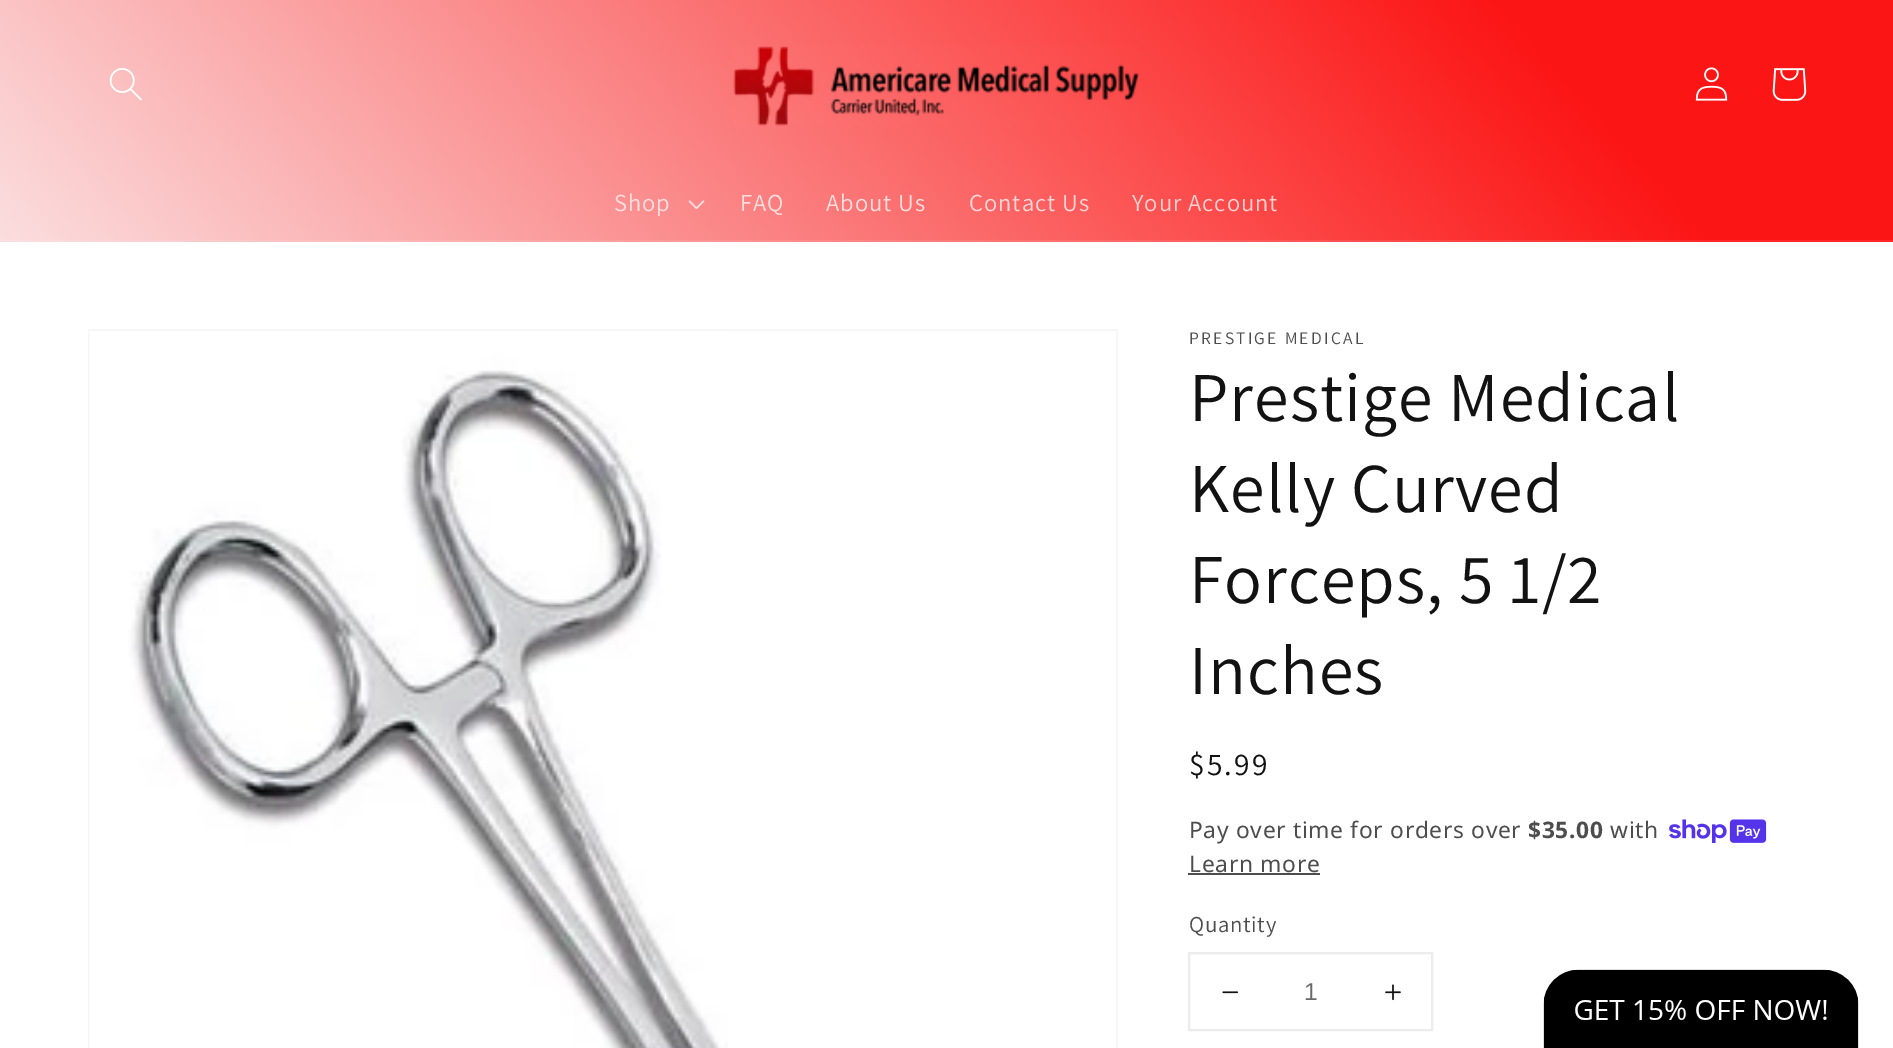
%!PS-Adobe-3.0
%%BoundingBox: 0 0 1893 1048
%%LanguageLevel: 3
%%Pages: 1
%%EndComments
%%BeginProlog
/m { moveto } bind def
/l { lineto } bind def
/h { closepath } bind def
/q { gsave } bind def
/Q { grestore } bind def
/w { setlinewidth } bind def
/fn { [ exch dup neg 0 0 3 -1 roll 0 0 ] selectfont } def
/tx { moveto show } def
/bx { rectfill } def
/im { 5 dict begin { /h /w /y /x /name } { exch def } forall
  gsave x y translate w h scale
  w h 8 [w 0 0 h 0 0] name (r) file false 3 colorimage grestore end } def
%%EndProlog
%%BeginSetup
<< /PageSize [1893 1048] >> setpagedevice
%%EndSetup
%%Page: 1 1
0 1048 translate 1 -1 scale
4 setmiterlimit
1 setgray
0 0 1893 1048 bx
q 0 0 m 1893 0 l 1893 240 l 0 240 l h clip newpath
<< /ShadingType 2 /ColorSpace /DeviceRGB /Coords [1730 -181 163 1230] /Extend [true true] /Function << /FunctionType 3 /Domain [0 1] /Functions [<< /FunctionType 2 /Domain [0 1] /C0 [0.988 0.082 0.082] /C1 [0.988 0.082 0.082] /N 1 >> << /FunctionType 2 /Domain [0 1] /C0 [0.988 0.082 0.082] /C1 [0.984 0.984 0.988] /N 1 >> << /FunctionType 2 /Domain [0 1] /C0 [0.984 0.984 0.988] /C1 [0.984 0.984 0.988] /N 1 >>] /Bounds [0.14 0.83] /Encode [0 1 0 1 0 1] >> >> shfill Q
q 0 240 m 1893 240 l 1893 242 l 0 242 l h clip newpath
<< /ShadingType 2 /ColorSpace /DeviceRGB /Coords [1730 -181 163 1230] /Extend [true true] /Function << /FunctionType 3 /Domain [0 1] /Functions [<< /FunctionType 2 /Domain [0 1] /C0 [0.988 0.157 0.157] /C1 [0.988 0.157 0.157] /N 1 >> << /FunctionType 2 /Domain [0 1] /C0 [0.988 0.157 0.157] /C1 [0.984 0.984 0.988] /N 1 >> << /FunctionType 2 /Domain [0 1] /C0 [0.984 0.984 0.988] /C1 [0.984 0.984 0.988] /N 1 >>] /Bounds [0.14 0.83] /Encode [0 1 0 1 0 1] >> >> shfill Q
(image0.raw) 109 68 33 33 im
(image1.raw) 733 46 407 80 im
(image2.raw) 1695 67 33 34 im
(image3.raw) 1772 68 35 33 im
/Assistant-Regular 24.5 fn
0.996 0.875 0.878 setrgbcolor
614 211 m 1 0 (Shop) ashow
(image4.raw) 688 200 17 9 im
740 211 m 1 0 (FAQ) ashow
826 211 m 1 0 (About Us) ashow
0.996 0.847 0.847 setrgbcolor
969 211 m 1 0 (Contact Us) ashow
0.996 0.824 0.824 setrgbcolor
1132 211 m 1 0 (Your Account) ashow
0.965 setgray
2 w
89 330 1028 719 rectstroke
(image5.raw) 89 331 639 717 im
/Assistant-Regular 17.5 fn
0.302 setgray
1189 344 m 2.25 0 (PRESTIGE MEDICAL) ashow
/Assistant-Regular 70 fn
0.071 setgray
1189 421 m 1 0 (Prestige Medical) ashow
1189 512 m 1 0 (Kelly Curved) ashow
1189 603 m 1 0 (Forceps, 5 1/2) ashow
1189 694 m 1 0 (Inches) ashow
/Assistant-Regular 31.5 fn
1189 775 m 2.25 0 ($5.99) ashow
/NotoSans-Regular 22.75 fn
0.302 setgray
1189 838 m 0.7 0 (Pay over time for orders over) ashow
/NotoSans-Bold 22.75 fn
1528 838 m 0.7 0 ($35.00) ashow
/NotoSans-Regular 22.75 fn
1610 838 m 0.7 0 (with) ashow
(image6.raw) 1669 819 98 24 im
1189 872 m 0.7 0 (Learn more) ashow
1188 873 132 2 bx
/Assistant-Regular 22.75 fn
1189 932 m 0.7 0 (Quantity) ashow
0.925 setgray
1189 953 243 77 rectstroke
(image7.raw) 1222 991 17 3 im
/LiberationSans-Regular 24.5 fn
0.408 setgray
(1) 1304 1000 tx
(image8.raw) 1385 984 16 17 im
(image9.raw) 1543 969 316 79 im
showpage
%%EOF
